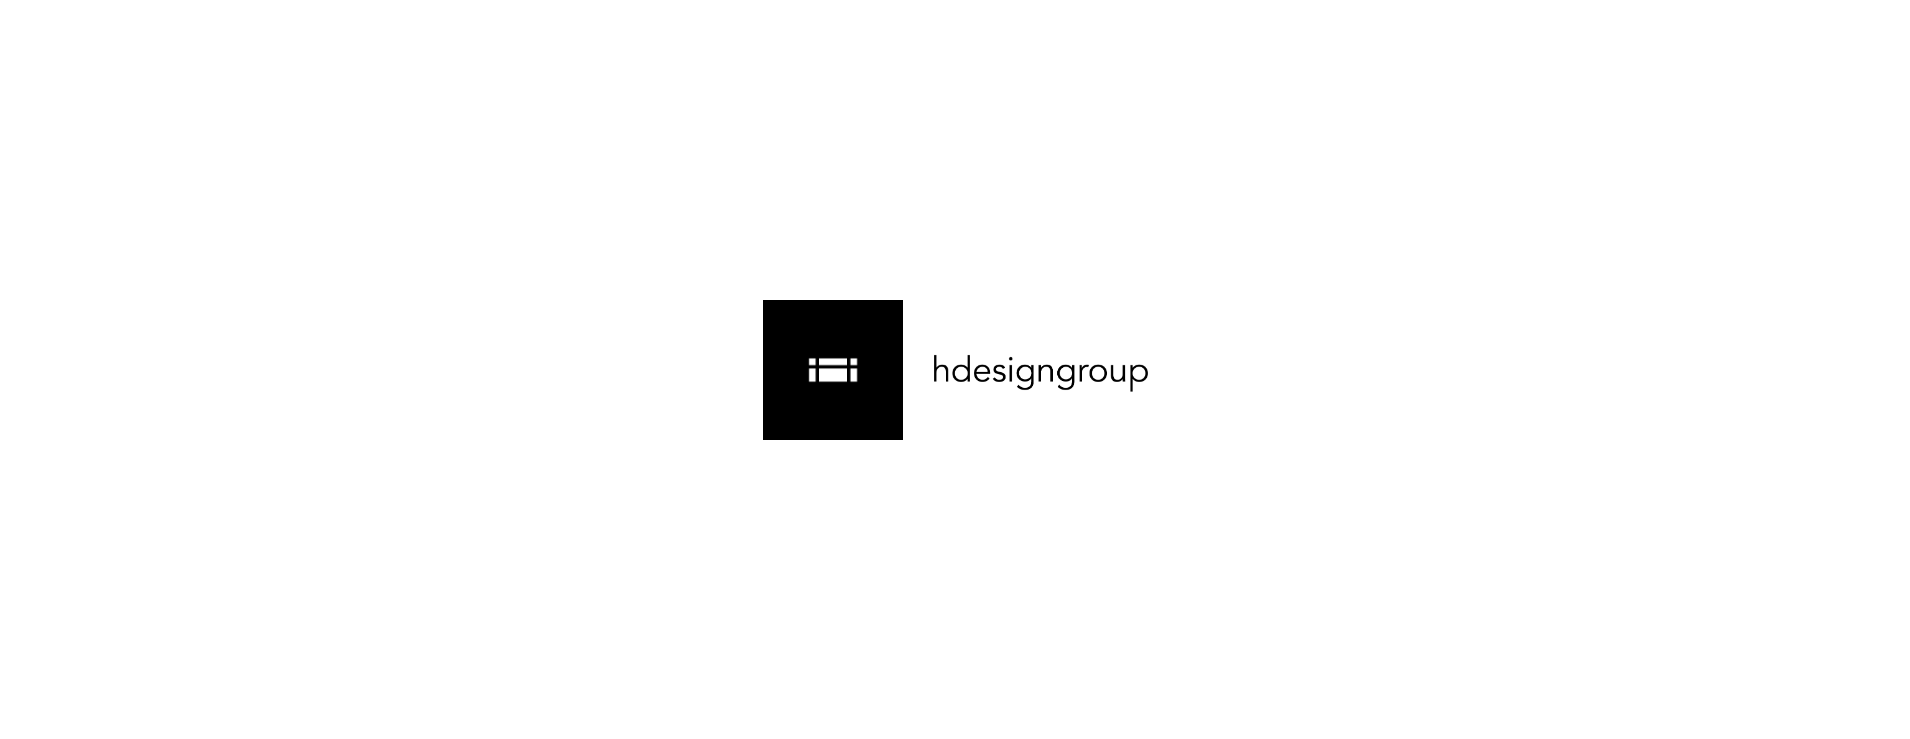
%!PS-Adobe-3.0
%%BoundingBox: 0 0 1910 739
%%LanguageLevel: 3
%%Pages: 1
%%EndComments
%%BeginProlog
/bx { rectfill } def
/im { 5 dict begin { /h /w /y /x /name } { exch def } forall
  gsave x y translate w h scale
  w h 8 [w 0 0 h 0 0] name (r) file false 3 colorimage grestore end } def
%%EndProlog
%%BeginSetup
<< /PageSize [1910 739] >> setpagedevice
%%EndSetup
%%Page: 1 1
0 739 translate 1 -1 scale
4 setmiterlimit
1 setgray
0 0 1910 739 bx
(image0.raw) 763 300 140 140 im
(image1.raw) 934 354 214 38 im
showpage
%%EOF
